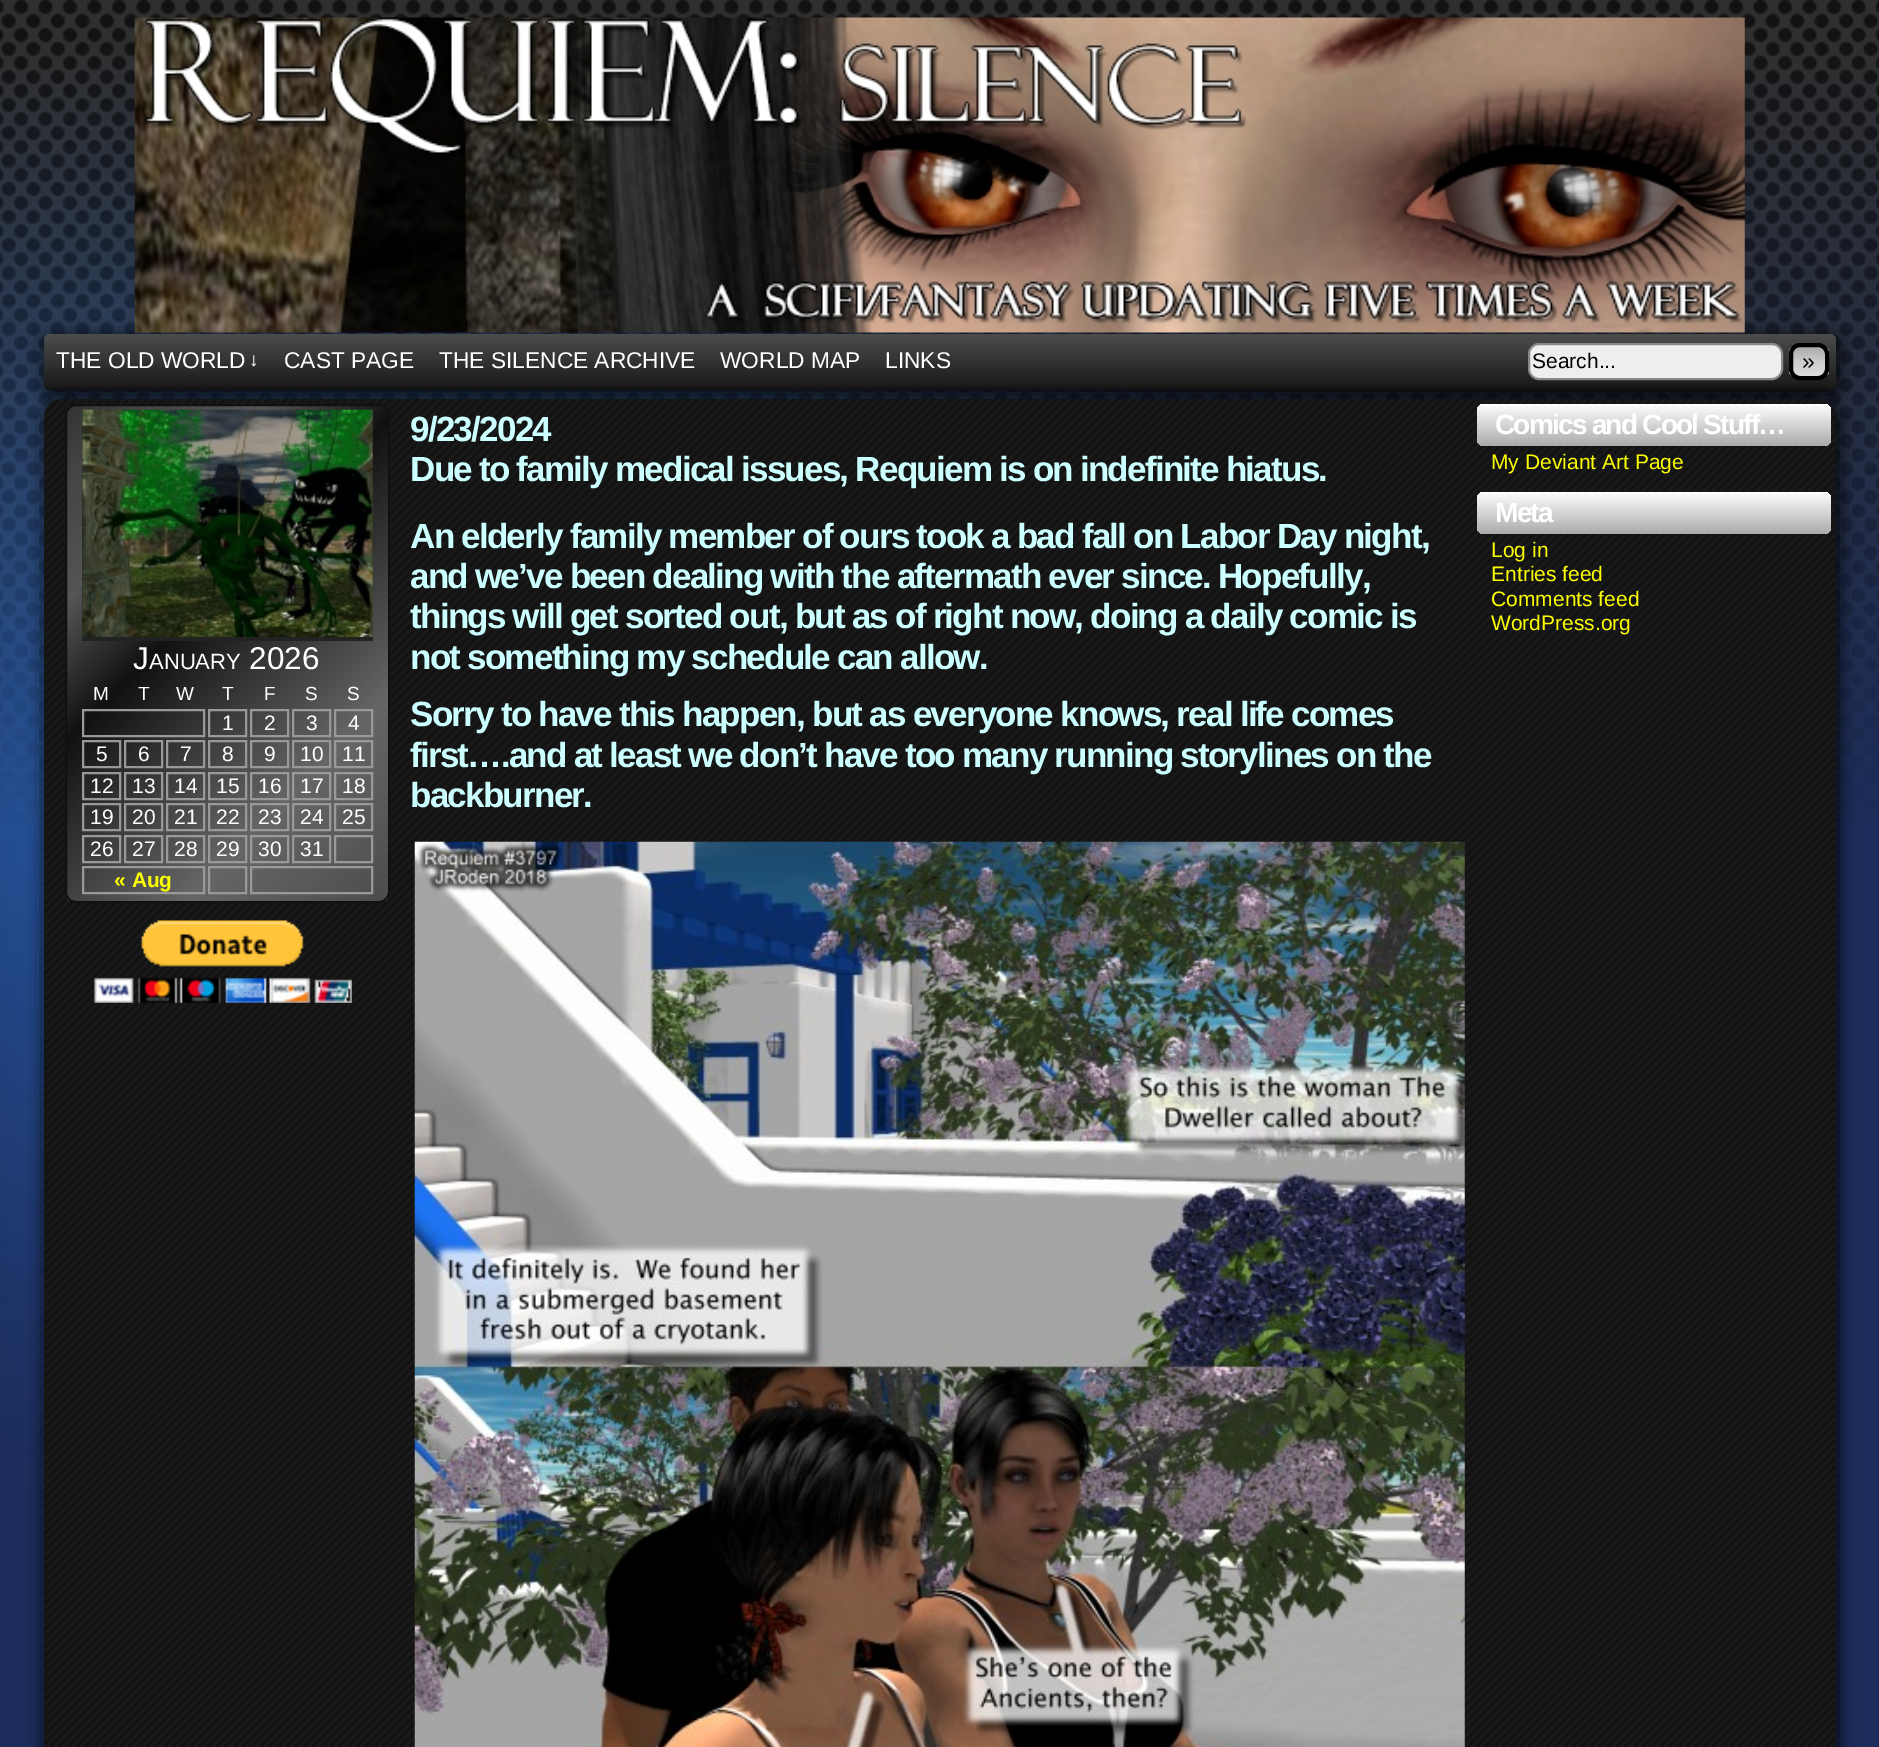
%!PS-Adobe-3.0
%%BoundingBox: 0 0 1879 1747
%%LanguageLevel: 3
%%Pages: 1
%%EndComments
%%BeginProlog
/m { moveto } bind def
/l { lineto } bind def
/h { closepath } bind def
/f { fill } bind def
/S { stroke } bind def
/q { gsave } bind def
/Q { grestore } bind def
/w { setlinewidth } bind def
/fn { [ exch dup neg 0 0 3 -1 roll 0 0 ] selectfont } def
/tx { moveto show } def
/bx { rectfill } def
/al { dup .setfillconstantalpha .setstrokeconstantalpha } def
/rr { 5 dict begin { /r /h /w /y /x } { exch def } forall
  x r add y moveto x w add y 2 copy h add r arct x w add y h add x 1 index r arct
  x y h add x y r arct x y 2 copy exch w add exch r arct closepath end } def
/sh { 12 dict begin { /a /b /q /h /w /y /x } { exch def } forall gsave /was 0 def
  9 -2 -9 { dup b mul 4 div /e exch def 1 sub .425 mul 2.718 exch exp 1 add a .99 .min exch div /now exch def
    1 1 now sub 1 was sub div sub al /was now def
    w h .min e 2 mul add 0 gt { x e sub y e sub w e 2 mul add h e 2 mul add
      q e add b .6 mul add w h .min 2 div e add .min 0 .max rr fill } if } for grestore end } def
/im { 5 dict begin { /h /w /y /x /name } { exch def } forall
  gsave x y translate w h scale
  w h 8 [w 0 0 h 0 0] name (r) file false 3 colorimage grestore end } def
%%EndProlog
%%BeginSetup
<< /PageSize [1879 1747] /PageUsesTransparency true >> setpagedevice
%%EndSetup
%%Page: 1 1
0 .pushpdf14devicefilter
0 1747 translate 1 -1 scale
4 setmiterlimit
1 setgray
0 0 1879 1747 bx
(image0.raw) 0 44 1879 1703 im
(image1.raw) 0 0 1879 823 im
0 setgray
46 338 1792 56 7 9 1 sh
(image2.raw) 134 17 1611 316 im
q 44 334 1792 56 7 rr clip newpath
<< /ShadingType 2 /ColorSpace /DeviceRGB /Coords [940 334 940 390] /Extend [true true] /Function << /FunctionType 3 /Domain [0 1] /Functions [<< /FunctionType 2 /Domain [0 1] /C0 [0.298 0.298 0.298] /C1 [0.11 0.11 0.11] /N 1 >> << /FunctionType 2 /Domain [0 1] /C0 [0.11 0.11 0.11] /C1 [0.075 0.075 0.075] /N 1 >>] /Bounds [0.91] /Encode [0 1 0 1] >> >> shfill Q
/LiberationSans-Regular 22.75 fn
1 setgray
(THE OLD WORLD) 56 368 tx
/LiberationSans-Regular 19 fn
(↓) 249 366 tx
/LiberationSans-Regular 22.75 fn
(CAST PAGE) 284 368 tx
(THE SILENCE ARCHIVE) 439 368 tx
(WORLD MAP) 720 368 tx
(LINKS) 885 368 tx
0 setgray
46 403 1792 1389 18 9 1 sh
0.933 setgray
1529 344 253 35 10 rr q f Q
0.533 setgray
2 w
S
/LiberationSans-Regular 21 fn
0 setgray
(Search...) 1532 368 tx
q
1789 343 40 37 11 rr clip newpath
q 1789 347 m 1829 347 l 1829 376 l 1789 376 l h clip newpath
<< /ShadingType 2 /ColorSpace /DeviceRGB /Coords [1809 347 1809 376] /Extend [true true] /Function << /FunctionType 3 /Domain [0 1] /Functions [<< /FunctionType 2 /Domain [0 1] /C0 [0.667 0.667 0.667] /C1 [0.8 0.8 0.8] /N 1 >> << /FunctionType 2 /Domain [0 1] /C0 [0.8 0.8 0.8] /C1 [0.867 0.867 0.867] /N 1 >>] /Bounds [0.5] /Encode [0 1 0 1] >> >> shfill Q
Q
4 w
1791 345 36 33 9 rr S
/LiberationSans-Regular 23 fn
(») 1802 369 tx
0.067 setgray
44 399 1792 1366 18 rr f
(image3.raw) 43 399 1793 1348 im
q
65 404 325 499 11 rr clip newpath
q 67 406 m 389 406 l 389 901 l 67 901 l h clip newpath
<< /ShadingType 2 /ColorSpace /DeviceRGB /Coords [23 449 432 858] /Extend [true true] /Function << /FunctionType 3 /Domain [0 1] /Functions [<< /FunctionType 2 /Domain [0 1] /C0 [0.2 0.2 0.2] /C1 [0.267 0.267 0.267] /N 1 >> << /FunctionType 2 /Domain [0 1] /C0 [0.267 0.267 0.267] /C1 [0.333 0.333 0.333] /N 1 >> << /FunctionType 2 /Domain [0 1] /C0 [0.333 0.333 0.333] /C1 [0.067 0.067 0.067] /N 1 >> << /FunctionType 2 /Domain [0 1] /C0 [0.067 0.067 0.067] /C1 [0.4 0.4 0.4] /N 1 >> << /FunctionType 2 /Domain [0 1] /C0 [0.4 0.4 0.4] /C1 [0.349 0.349 0.349] /N 1 >> << /FunctionType 2 /Domain [0 1] /C0 [0.349 0.349 0.349] /C1 [0.298 0.298 0.298] /N 1 >>] /Bounds [0.09 0.24 0.41 0.75 0.88] /Encode [0 1 0 1 0 1 0 1 0 1 0 1] >> >> shfill Q
Q
2 w
66 405 323 497 10 rr S
0.133 setgray
82 410 291 231 bx
(image4.raw) 82 409 291 228 im
/LiberationSans-Regular 31.5 fn
1 setgray
(J) 133 669 tx
/LiberationSans-Regular 22 fn
(ANUARY) 149 669 tx
/LiberationSans-Regular 31.5 fn
(2026) 249 669 tx
/LiberationSans-Regular 19 fn
(M) 93 700 tx
(T) 138 700 tx
(W) 176 700 tx
(T) 222 700 tx
(F) 264 700 tx
(S) 305 700 tx
(S) 347 700 tx
0.6 setgray
83 710 121 26 rectstroke
209 710 37 26 rectstroke
/LiberationSans-Regular 21 fn
1 setgray
(1) 222 730 tx
0.6 setgray
251 710 37 26 rectstroke
1 setgray
(2) 264 730 tx
0.6 setgray
293 710 37 26 rectstroke
1 setgray
(3) 306 730 tx
0.6 setgray
335 710 37 26 rectstroke
1 setgray
(4) 348 730 tx
0.6 setgray
83 741 37 26 rectstroke
1 setgray
(5) 96 761 tx
0.6 setgray
125 741 37 26 rectstroke
1 setgray
(6) 138 761 tx
0.6 setgray
167 741 37 26 rectstroke
1 setgray
(7) 180 761 tx
0.6 setgray
209 741 37 26 rectstroke
1 setgray
(8) 222 761 tx
0.6 setgray
251 741 37 26 rectstroke
1 setgray
(9) 264 761 tx
0.6 setgray
293 741 37 26 rectstroke
1 setgray
(10) 300 761 tx
0.6 setgray
335 741 37 26 rectstroke
1 setgray
(11) 342 761 tx
0.6 setgray
83 773 37 26 rectstroke
1 setgray
(12) 90 793 tx
0.6 setgray
125 773 37 26 rectstroke
1 setgray
(13) 132 793 tx
0.6 setgray
167 773 37 26 rectstroke
1 setgray
(14) 174 793 tx
0.6 setgray
209 773 37 26 rectstroke
1 setgray
(15) 216 793 tx
0.6 setgray
251 773 37 26 rectstroke
1 setgray
(16) 258 793 tx
0.6 setgray
293 773 37 26 rectstroke
1 setgray
(17) 300 793 tx
0.6 setgray
335 773 37 26 rectstroke
1 setgray
(18) 342 793 tx
0.6 setgray
83 804 37 26 rectstroke
1 setgray
(19) 90 824 tx
0.6 setgray
125 804 37 26 rectstroke
1 setgray
(20) 132 824 tx
0.6 setgray
167 804 37 26 rectstroke
1 setgray
(21) 174 824 tx
0.6 setgray
209 804 37 26 rectstroke
1 setgray
(22) 216 824 tx
0.6 setgray
251 804 37 26 rectstroke
1 setgray
(23) 258 824 tx
0.6 setgray
293 804 37 26 rectstroke
1 setgray
(24) 300 824 tx
0.6 setgray
335 804 37 26 rectstroke
1 setgray
(25) 342 824 tx
0.6 setgray
83 836 37 26 rectstroke
1 setgray
(26) 90 856 tx
0.6 setgray
125 836 37 26 rectstroke
1 setgray
(27) 132 856 tx
0.6 setgray
167 836 37 26 rectstroke
1 setgray
(28) 174 856 tx
0.6 setgray
209 836 37 26 rectstroke
1 setgray
(29) 216 856 tx
0.6 setgray
251 836 37 26 rectstroke
1 setgray
(30) 258 856 tx
0.6 setgray
293 836 37 26 rectstroke
1 setgray
(31) 300 856 tx
0.6 setgray
335 836 37 26 rectstroke
83 867 121 26 rectstroke
/LiberationSans-Bold 21 fn
0.988 1 0 setrgbcolor
(« Aug) 114 887 tx
0.6 setgray
209 867 37 26 rectstroke
251 867 121 26 rectstroke
(image5.raw) 94 920 258 83 im
/LiberationSans-Bold 35 fn
0.8 1 1 setrgbcolor
410 441 m -1.75 0 (9/23/2024) ashow
410 481 m -1.75 0 (Due to family medical issues, Requiem is on indefinite hiatus.) ashow
410 548 m -1.75 0 (An elderly family member of ours took a bad fall on Labor Day night,) ashow
410 588 m -1.75 0 (and we’ve been dealing with the aftermath ever since. Hopefully,) ashow
410 628 m -1.75 0 (things will get sorted out, but as of right now, doing a daily comic is) ashow
410 669 m -1.75 0 (not something my schedule can allow.) ashow
410 726 m -1.75 0 (Sorry to have this happen, but as everyone knows, real life comes) ashow
410 767 m -1.75 0 (first….and at least we don’t have too many running storylines on the) ashow
410 807 m -1.75 0 (backburner.) ashow
(image6.raw) 414 841 1051 906 im
q 1477 404 354 42 7 rr clip newpath
<< /ShadingType 2 /ColorSpace /DeviceRGB /Coords [1654 404 1654 446] /Extend [true true] /Function << /FunctionType 2 /Domain [0 1] /C0 [0.996 0.996 0.996] /C1 [0.667 0.667 0.667] /N 1 >> >> shfill Q
/LiberationSans-Bold 28 fn
1 setgray
1495 434 m -1.75 0 (Comics and Cool Stuff…) ashow
/LiberationSans-Regular 21 fn
0.988 1 0 setrgbcolor
(My Deviant Art Page) 1491 469 tx
q 1477 492 354 42 7 rr clip newpath
<< /ShadingType 2 /ColorSpace /DeviceRGB /Coords [1654 492 1654 534] /Extend [true true] /Function << /FunctionType 2 /Domain [0 1] /C0 [0.996 0.996 0.996] /C1 [0.667 0.667 0.667] /N 1 >> >> shfill Q
/LiberationSans-Bold 28 fn
1 setgray
1495 522 m -1.75 0 (Meta) ashow
/LiberationSans-Regular 21 fn
0.988 1 0 setrgbcolor
(Log in) 1491 557 tx
(Entries feed) 1491 581 tx
(Comments feed) 1491 606 tx
(WordPress.org) 1491 630 tx
.poppdf14devicefilter showpage
%%EOF
